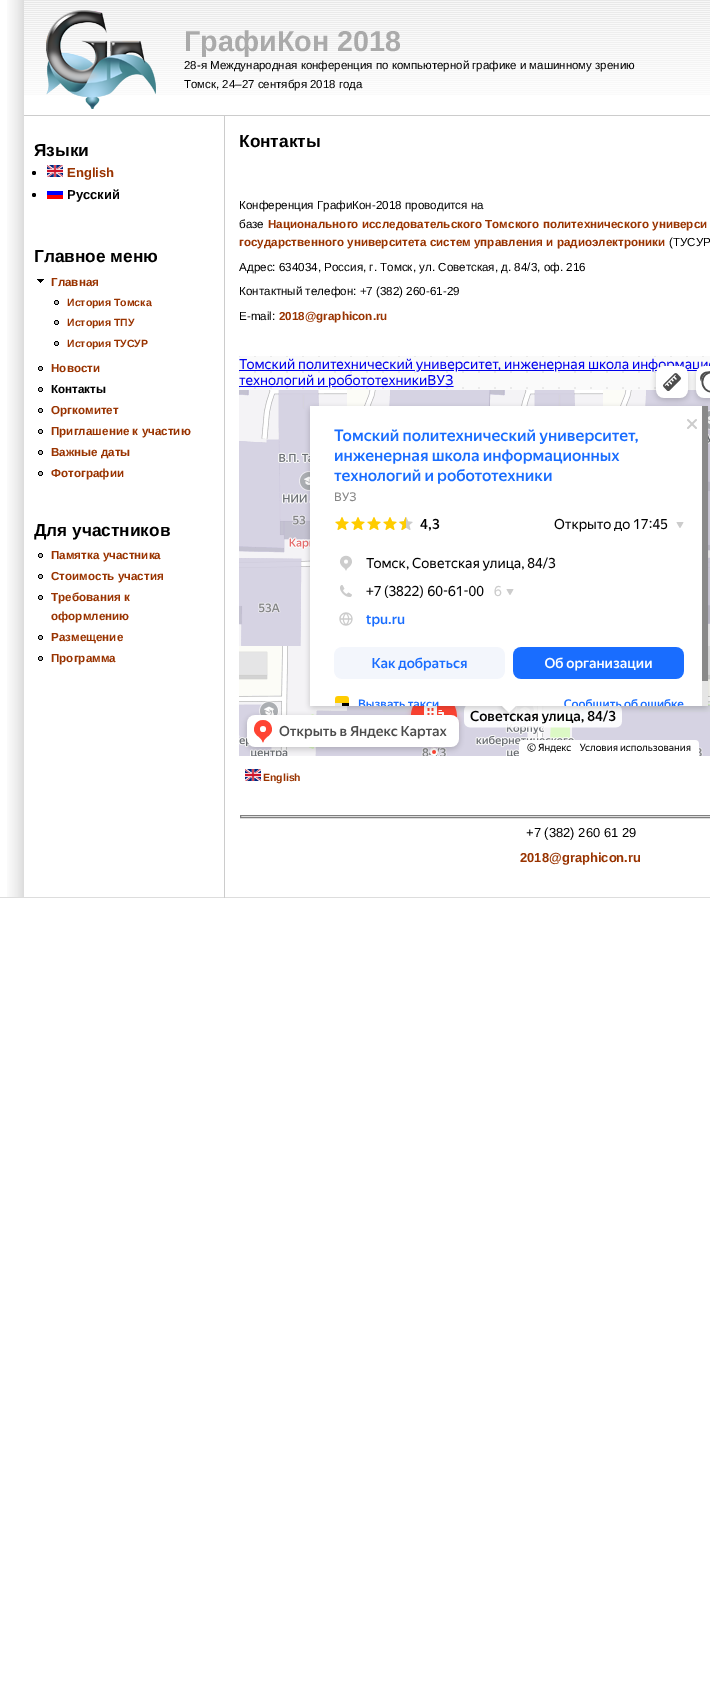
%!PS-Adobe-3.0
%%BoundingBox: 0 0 710 1687
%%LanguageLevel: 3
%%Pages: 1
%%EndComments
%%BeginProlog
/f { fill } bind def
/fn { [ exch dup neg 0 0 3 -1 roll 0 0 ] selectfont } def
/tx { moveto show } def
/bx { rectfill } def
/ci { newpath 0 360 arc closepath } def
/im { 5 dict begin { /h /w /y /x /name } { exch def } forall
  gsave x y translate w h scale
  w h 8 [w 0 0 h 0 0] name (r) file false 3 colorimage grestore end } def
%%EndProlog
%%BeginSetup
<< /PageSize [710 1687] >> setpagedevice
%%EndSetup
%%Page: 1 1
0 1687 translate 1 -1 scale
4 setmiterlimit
1 setgray
0 0 710 1687 bx
(image0.raw) 7 0 17 116 im
(image1.raw) 24 0 686 95 im
0.8 setgray
24 115 686 1 bx
(image2.raw) 46 10 110 99 im
/LiberationSans-Bold 28.75 fn
0.667 setgray
(ГрафиКон 2018) 184 51 tx
/LiberationSans-Regular 11.5 fn
0 setgray
(28-я Международная конференция по компьютерной графике и машинному зрению) 184 69 tx
(Томск, 24–27 сентября 2018 года) 184 88 tx
0.867 setgray
0 897 710 1 bx
(image3.raw) 7 116 17 781 im
0.8 setgray
224 116 1 782 bx
/LiberationSans-Bold 17.25 fn
0 setgray
(Языки) 34 156 tx
34 173 2 ci f
(image4.raw) 47 165 16 12 im
/LiberationSans-Bold 13 fn
0.6 0.2 0 setrgbcolor
(English) 67 177 tx
0 setgray
34 195 2 ci f
(image5.raw) 47 191 16 8 im
(Русский) 67 199 tx
/LiberationSans-Bold 17.25 fn
(Главное меню) 34 262 tx
(image6.raw) 37 279 7 4 im
/LiberationSans-Bold 11.65 fn
0.6 0.2 0 setrgbcolor
(Главная) 51 286 tx
(image7.raw) 54 300 5 5 im
/LiberationSans-Bold 10.5 fn
(История Томска) 67 306 tx
(image7.raw) 54 320 5 5 im
(История ТПУ) 67 326 tx
(image7.raw) 54 341 5 5 im
(История ТУСУР) 67 347 tx
(image7.raw) 38 366 5 5 im
/LiberationSans-Bold 11.65 fn
(Новости) 51 372 tx
(image7.raw) 38 387 5 5 im
0 setgray
(Контакты) 51 393 tx
(image7.raw) 38 408 5 5 im
0.6 0.2 0 setrgbcolor
(Оргкомитет) 51 414 tx
(image7.raw) 38 429 5 5 im
(Приглашение к участию) 51 435 tx
(image7.raw) 38 450 5 5 im
(Важные даты) 51 456 tx
(image7.raw) 38 471 5 5 im
(Фотографии) 51 477 tx
/LiberationSans-Bold 17.25 fn
0 setgray
(Для участников) 34 536 tx
(image7.raw) 38 553 5 5 im
/LiberationSans-Bold 11.65 fn
0.6 0.2 0 setrgbcolor
(Памятка участника) 51 559 tx
(image7.raw) 38 574 5 5 im
(Стоимость участия) 51 580 tx
(image7.raw) 38 595 5 5 im
(Требования к) 51 601 tx
(оформлению) 51 620 tx
(image7.raw) 38 635 5 5 im
(Размещение) 51 641 tx
(image7.raw) 38 656 5 5 im
(Программа) 51 662 tx
/LiberationSans-Bold 17.25 fn
0 setgray
(Контакты) 239 147 tx
/LiberationSans-Regular 11.65 fn
(Конференция ГрафиКон-2018 проводится на) 239 209 tx
(базе) 239 228 tx
/LiberationSans-Bold 11.65 fn
0.6 0.2 0 setrgbcolor
(Национального исследовательского Томского политехнического универси) 268 228 tx
(государственного университета систем управления и радиоэлектроники) 239 246 tx
/LiberationSans-Regular 11.65 fn
0 setgray
(\(ТУСУР) 669 246 tx
(Адрес: 634034, Россия, г. Томск, ул. Советская, д. 84/3, оф. 216) 239 271 tx
(Контактный телефон: +7 \(382\) 260-61-29) 239 295 tx
(E-mail:) 239 320 tx
/LiberationSans-Bold 11.65 fn
0.6 0.2 0 setrgbcolor
(2018@graphicon.ru) 279 320 tx
(image8.raw) 239 356 471 400 im
(image4.raw) 245 769 16 12 im
/LiberationSans-Bold 10.5 fn
(English) 263 781 tx
0.502 setgray
240.5 815.5 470 2 rectstroke
/LiberationSans-Regular 13 fn
0 setgray
(+7 \(382\) 260 61 29) 526 837 tx
/LiberationSans-Bold 13 fn
0.6 0.2 0 setrgbcolor
(2018@graphicon.ru) 520 862 tx
showpage
%%EOF
